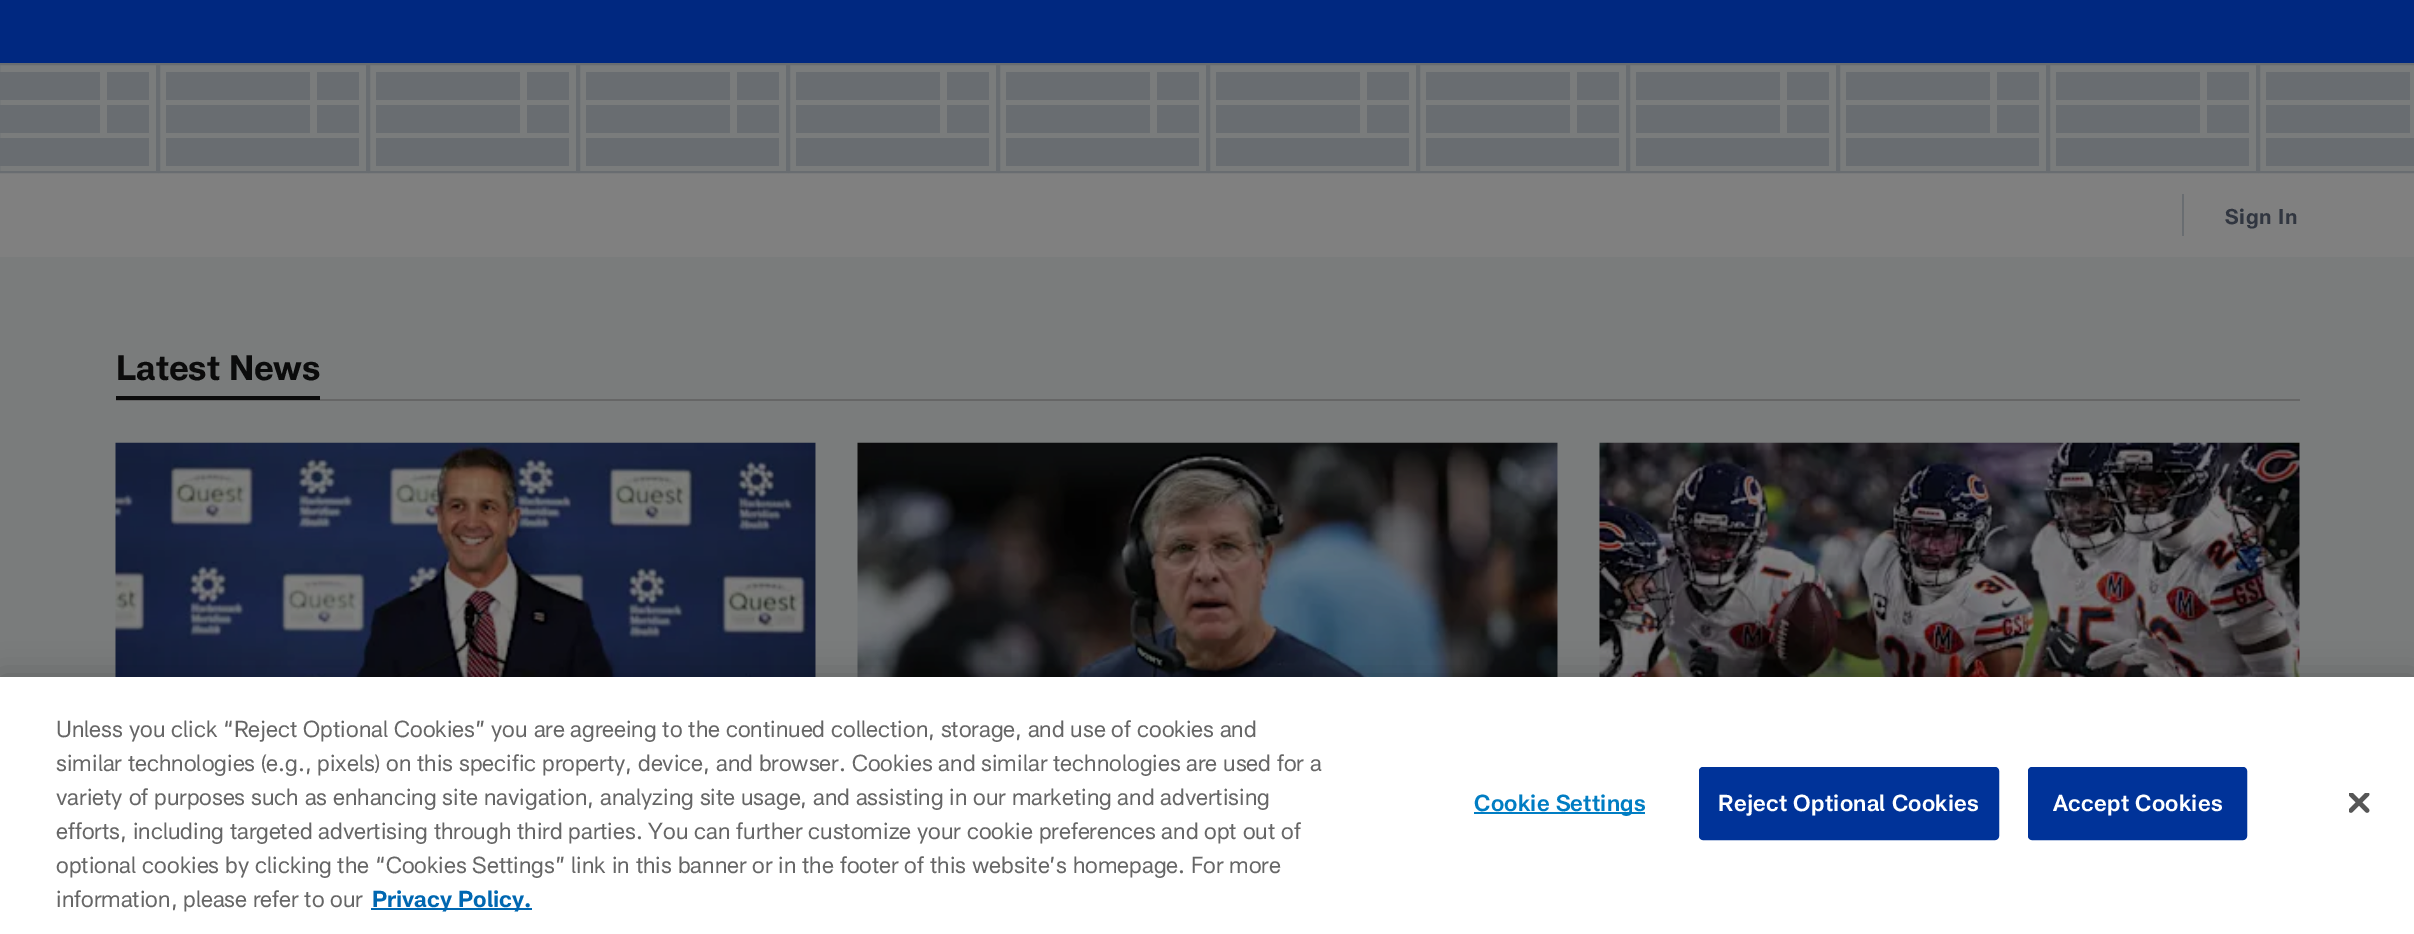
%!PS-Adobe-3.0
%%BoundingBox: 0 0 2414 934
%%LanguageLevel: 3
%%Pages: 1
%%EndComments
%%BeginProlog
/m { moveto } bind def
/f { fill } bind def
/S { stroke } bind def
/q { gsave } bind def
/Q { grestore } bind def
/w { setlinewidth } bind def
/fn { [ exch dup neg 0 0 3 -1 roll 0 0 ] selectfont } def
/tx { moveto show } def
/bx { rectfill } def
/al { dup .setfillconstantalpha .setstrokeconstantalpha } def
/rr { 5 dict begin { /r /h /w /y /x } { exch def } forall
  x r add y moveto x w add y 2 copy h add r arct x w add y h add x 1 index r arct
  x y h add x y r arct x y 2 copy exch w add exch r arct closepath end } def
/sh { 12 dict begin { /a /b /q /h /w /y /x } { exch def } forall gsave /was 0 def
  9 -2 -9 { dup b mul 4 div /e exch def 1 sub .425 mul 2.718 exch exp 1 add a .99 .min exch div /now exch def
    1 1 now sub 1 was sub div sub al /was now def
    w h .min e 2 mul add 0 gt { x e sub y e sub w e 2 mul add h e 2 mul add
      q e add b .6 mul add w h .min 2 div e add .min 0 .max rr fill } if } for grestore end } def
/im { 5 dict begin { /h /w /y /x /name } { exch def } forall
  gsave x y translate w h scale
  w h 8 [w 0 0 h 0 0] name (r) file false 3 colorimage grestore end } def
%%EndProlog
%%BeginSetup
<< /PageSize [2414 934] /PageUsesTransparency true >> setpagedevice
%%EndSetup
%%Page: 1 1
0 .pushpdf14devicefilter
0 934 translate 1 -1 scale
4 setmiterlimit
0.478 0.486 0.486 setrgbcolor
0 0 2414 934 bx
0.502 setgray
0 173 2414 84 bx
0 0.157 0.502 setrgbcolor
0 0 2414 63 bx
0.412 0.427 0.443 setrgbcolor
2 w
-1 64 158 108 rectstroke
0 72 100 28 bx
107 72 42 28 bx
0 105 100 28 bx
107 105 42 28 bx
0 138 149 28 bx
159 64 208 108 rectstroke
166 72 144 28 bx
317 72 42 28 bx
166 105 144 28 bx
317 105 42 28 bx
166 138 193 28 bx
369 64 208 108 rectstroke
376 72 144 28 bx
527 72 42 28 bx
376 105 144 28 bx
527 105 42 28 bx
376 138 193 28 bx
579 64 208 108 rectstroke
586 72 144 28 bx
737 72 42 28 bx
586 105 144 28 bx
737 105 42 28 bx
586 138 193 28 bx
789 64 208 108 rectstroke
796 72 144 28 bx
947 72 42 28 bx
796 105 144 28 bx
947 105 42 28 bx
796 138 193 28 bx
999 64 208 108 rectstroke
1006 72 144 28 bx
1157 72 42 28 bx
1006 105 144 28 bx
1157 105 42 28 bx
1006 138 193 28 bx
1209 64 208 108 rectstroke
1216 72 144 28 bx
1367 72 42 28 bx
1216 105 144 28 bx
1367 105 42 28 bx
1216 138 193 28 bx
1419 64 208 108 rectstroke
1426 72 144 28 bx
1577 72 42 28 bx
1426 105 144 28 bx
1577 105 42 28 bx
1426 138 193 28 bx
1629 64 208 108 rectstroke
1636 72 144 28 bx
1787 72 42 28 bx
1636 105 144 28 bx
1787 105 42 28 bx
1636 138 193 28 bx
1839 64 208 108 rectstroke
1846 72 144 28 bx
1997 72 42 28 bx
1846 105 144 28 bx
1997 105 42 28 bx
1846 138 193 28 bx
2049 64 208 108 rectstroke
2056 72 144 28 bx
2207 72 42 28 bx
2056 105 144 28 bx
2207 105 42 28 bx
2056 138 193 28 bx
2259 64 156 108 rectstroke
2266 72 144 28 bx
2266 105 144 28 bx
2266 138 148 28 bx
2182 194 2 42 bx
/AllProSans-Bold 21 fn
0.192 0.212 0.251 setrgbcolor
2225 224 m 0.75 0 (Sign In) ashow
0.4 setgray
116 399 2184 2 bx
0.043 setgray
116 396 204 4 bx
/AllProSans-Bold 35 fn
(Latest News) 116 380 tx
0.502 setgray
815 443 1 234 bx
(image0.raw) 115 442 701 235 im
1557 443 1 234 bx
(image1.raw) 857 442 701 235 im
2299 443 1 234 bx
(image2.raw) 1599 442 701 235 im
0 setgray
0 677 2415 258 0 16 0.2 sh
1 setgray
0 677 2414 257 bx
/AllProSans-Regular 22.75 fn
0.4 setgray
(Unless you click “Reject Optional Cookies” you are agreeing to the continued collection, storage, and use of cookies and) 56 737 tx
(similar technologies \(e.g., pixels\) on this specific property, device, and browser. Cookies and similar technologies are used for a) 56 771 tx
(variety of purposes such as enhancing site navigation, analyzing site usage, and assisting in our marketing and advertising) 56 805 tx
(efforts, including targeted advertising through third parties. You can further customize your cookie preferences and opt out of) 56 839 tx
(optional cookies by clicking the “Cookies Settings” link in this banner or in the footer of this website’s homepage. For more) 56 873 tx
(information, please refer to our) 56 907 tx
0 0.404 0.694 setrgbcolor
371 908 161 2 bx
/AllProSans-Bold 22.75 fn
(Privacy Policy.) 372 907 tx
0 0.49 0.765 setrgbcolor
1474 812 171 2 bx
/AllProSans-SemiBold 22.75 fn
1474 811 m 0.25 0 (Cookie Settings) ashow
0 0.2 0.6 setrgbcolor
1700 768 298 71 3 rr q f Q
S
1 setgray
1718 811 m 0.25 0 (Reject Optional Cookies) ashow
0 0.2 0.6 setrgbcolor
2029 768 217 71 3 rr q f Q
S
1 setgray
2053 811 m 0.25 0 (Accept Cookies) ashow
(image3.raw) 2349 793 21 20 im
.poppdf14devicefilter showpage
%%EOF
